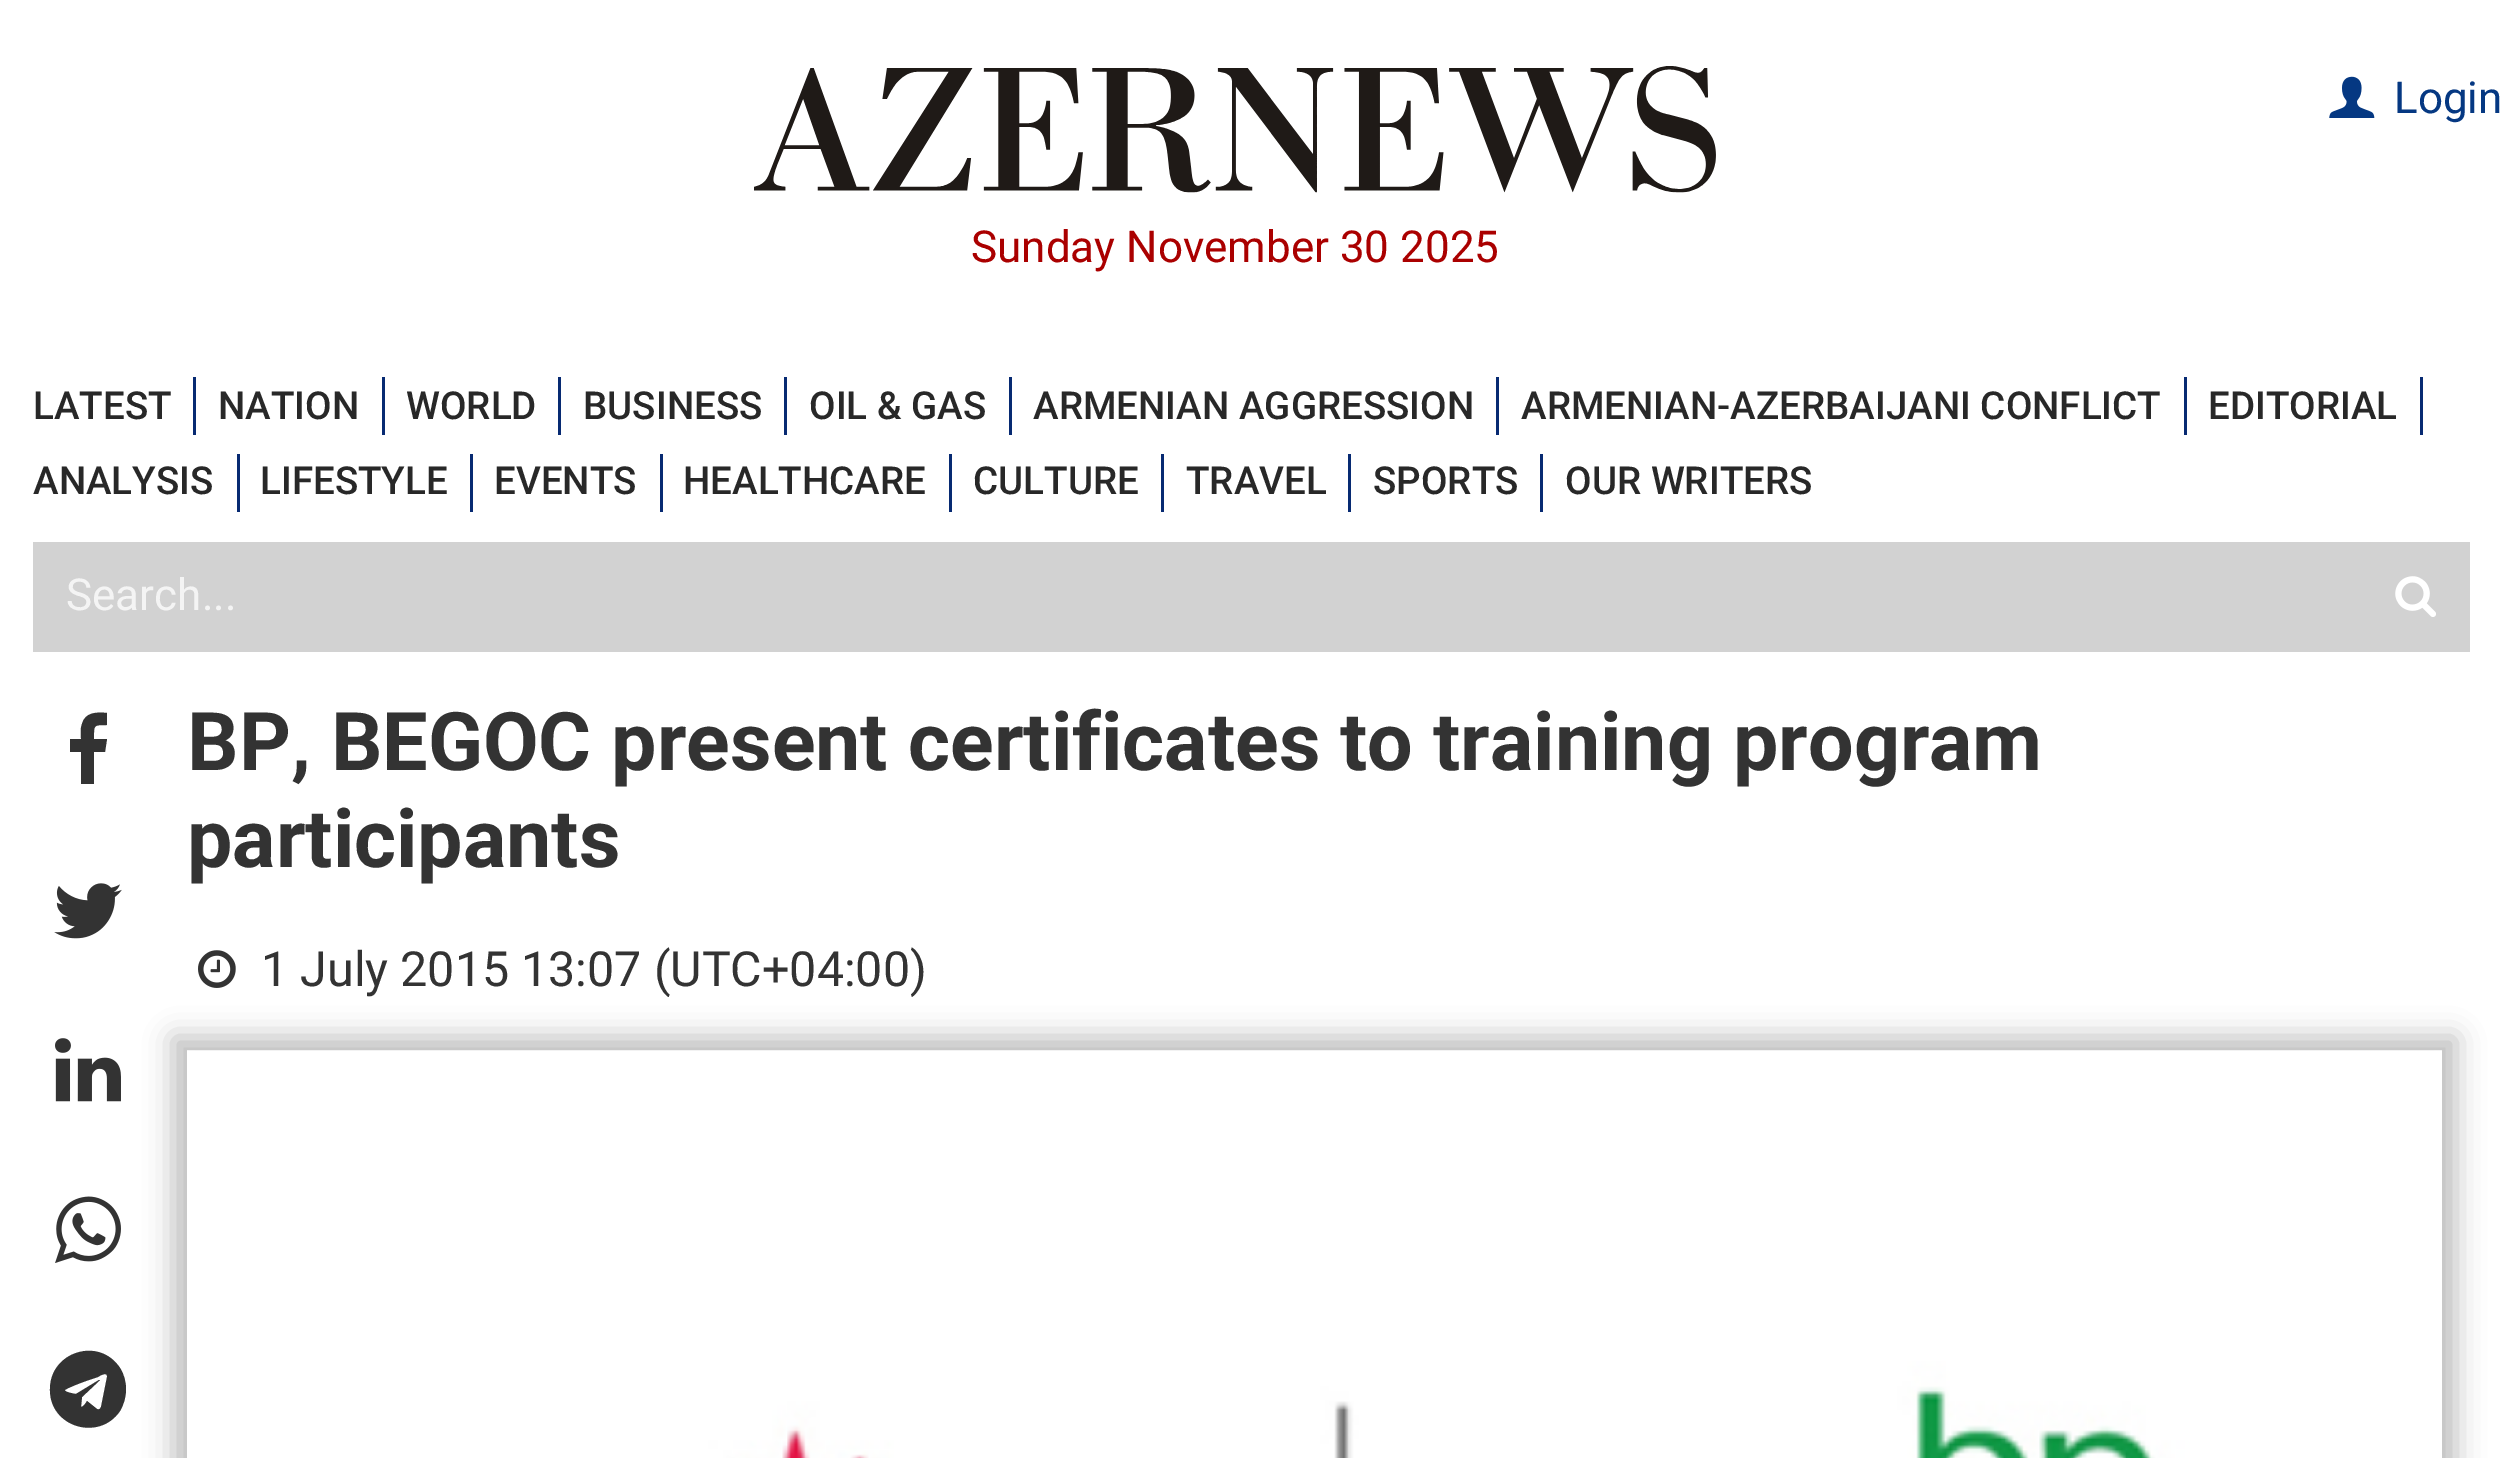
%!PS-Adobe-3.0
%%BoundingBox: 0 0 2502 1458
%%LanguageLevel: 3
%%Pages: 1
%%EndComments
%%BeginProlog
/m { moveto } bind def
/l { lineto } bind def
/c { curveto } bind def
/h { closepath } bind def
/f { fill } bind def
/fn { [ exch dup neg 0 0 3 -1 roll 0 0 ] selectfont } def
/tx { moveto show } def
/bx { rectfill } def
/al { dup .setfillconstantalpha .setstrokeconstantalpha } def
/rr { 5 dict begin { /r /h /w /y /x } { exch def } forall
  x r add y moveto x w add y 2 copy h add r arct x w add y h add x 1 index r arct
  x y h add x y r arct x y 2 copy exch w add exch r arct closepath end } def
/sh { 12 dict begin { /a /b /q /h /w /y /x } { exch def } forall gsave /was 0 def
  9 -2 -9 { dup b mul 4 div /e exch def 1 sub .425 mul 2.718 exch exp 1 add a .99 .min exch div /now exch def
    1 1 now sub 1 was sub div sub al /was now def
    w h .min e 2 mul add 0 gt { x e sub y e sub w e 2 mul add h e 2 mul add
      q e add b .6 mul add w h .min 2 div e add .min 0 .max rr fill } if } for grestore end } def
/im { 5 dict begin { /h /w /y /x /name } { exch def } forall
  gsave x y translate w h scale
  w h 8 [w 0 0 h 0 0] name (r) file false 3 colorimage grestore end } def
%%EndProlog
%%BeginSetup
<< /PageSize [2502 1458] /PageUsesTransparency true >> setpagedevice
%%EndSetup
%%Page: 1 1
0 .pushpdf14devicefilter
0 1458 translate 1 -1 scale
4 setmiterlimit
1 setgray
0 0 2502 1458 bx
(image0.raw) 754 66 962 127 im
(image1.raw) 2329 76 46 42 im
/Roboto-Regular 44 fn
0.02 0.22 0.51 setrgbcolor
(Login) 2394 113 tx
0.667 0 0 setrgbcolor
(Sunday November 30 2025) 971 262 tx
0.027 0.165 0.447 setrgbcolor
193 377 3 58 bx
/Roboto-Medium 38.5 fn
0.157 setgray
(LATEST) 33 419 tx
0.027 0.165 0.447 setrgbcolor
382 377 3 58 bx
0.157 setgray
(NATION) 218 419 tx
0.027 0.165 0.447 setrgbcolor
558 377 3 58 bx
0.157 setgray
(WORLD) 406 419 tx
0.027 0.165 0.447 setrgbcolor
784 377 3 58 bx
0.157 setgray
(BUSINESS) 583 419 tx
0.027 0.165 0.447 setrgbcolor
1009 377 3 58 bx
0.157 setgray
(OIL & GAS) 809 419 tx
0.027 0.165 0.447 setrgbcolor
1496 377 3 58 bx
0.157 setgray
(ARMENIAN AGGRESSION) 1033 419 tx
0.027 0.165 0.447 setrgbcolor
2184 377 3 58 bx
0.157 setgray
(ARMENIAN-AZERBAIJANI CONFLICT) 1521 419 tx
0.027 0.165 0.447 setrgbcolor
2420 377 3 58 bx
0.157 setgray
(EDITORIAL) 2208 419 tx
0.027 0.165 0.447 setrgbcolor
237 454 3 58 bx
0.157 setgray
(ANALYSIS) 33 494 tx
0.027 0.165 0.447 setrgbcolor
470 454 3 58 bx
0.157 setgray
(LIFESTYLE) 260 494 tx
0.027 0.165 0.447 setrgbcolor
660 454 3 58 bx
0.157 setgray
(EVENTS) 494 494 tx
0.027 0.165 0.447 setrgbcolor
949 454 3 58 bx
0.157 setgray
(HEALTHCARE) 683 494 tx
0.027 0.165 0.447 setrgbcolor
1161 454 3 58 bx
0.157 setgray
(CULTURE) 973 494 tx
0.027 0.165 0.447 setrgbcolor
1348 454 3 58 bx
0.157 setgray
(TRAVEL) 1186 494 tx
0.027 0.165 0.447 setrgbcolor
1540 454 3 58 bx
0.157 setgray
(SPORTS) 1373 494 tx
(OUR WRITERS) 1565 494 tx
0.824 setgray
33 542 2437 110 bx
/Roboto-Regular 44 fn
0.957 setgray
(Search...) 66 610 tx
(image2.raw) 2395 576 41 41 im
0.2 setgray
107 713 m 107 725 l 93 725 94 725 94 739 c 107 739 l 105 752 l 94 752 l 94 784 l 81 784 l 81 752 l 70 752 l 70 739 l 81 739 l 81 734 80 729 82 724 c 85 712 97 712 107 713 c h f
(image3.raw) 54 883 68 56 im
(image4.raw) 55 1038 66 64 im
(image5.raw) 55 1196 66 67 im
101 1407 m 107 1377 l 108 1371 99 1376 98 1377 c 86 1381 l 83 1382 67 1388 65 1390 c 64 1392 75 1394 76 1394 c 99 1380 l 100 1380 100 1381 99 1381 c 82 1397 l 81 1407 l 83 1407 86 1403 87 1401 c 97 1409 l 99 1410 100 1409 101 1407 c h 126 1389 m 126 1397 124 1404 120 1411 c 99 1442 49 1427 50 1389 c 50 1352 99 1336 120 1368 c 124 1374 126 1382 126 1389 c h f
/Roboto-Bold 80.8 fn
(BP, BEGOC present certificates to training program) 187 770 tx
(participants) 187 867 tx
(image6.raw) 198 950 38 38 im
/Roboto-Regular 48.4 fn
(1 July 2015 13:07 \(UTC+04:00\)) 261 986 tx
0 setgray
173 1037 2283 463 0 14 0.25 sh
(image7.raw) 187 1050 2255 408 im
.poppdf14devicefilter showpage
%%EOF
